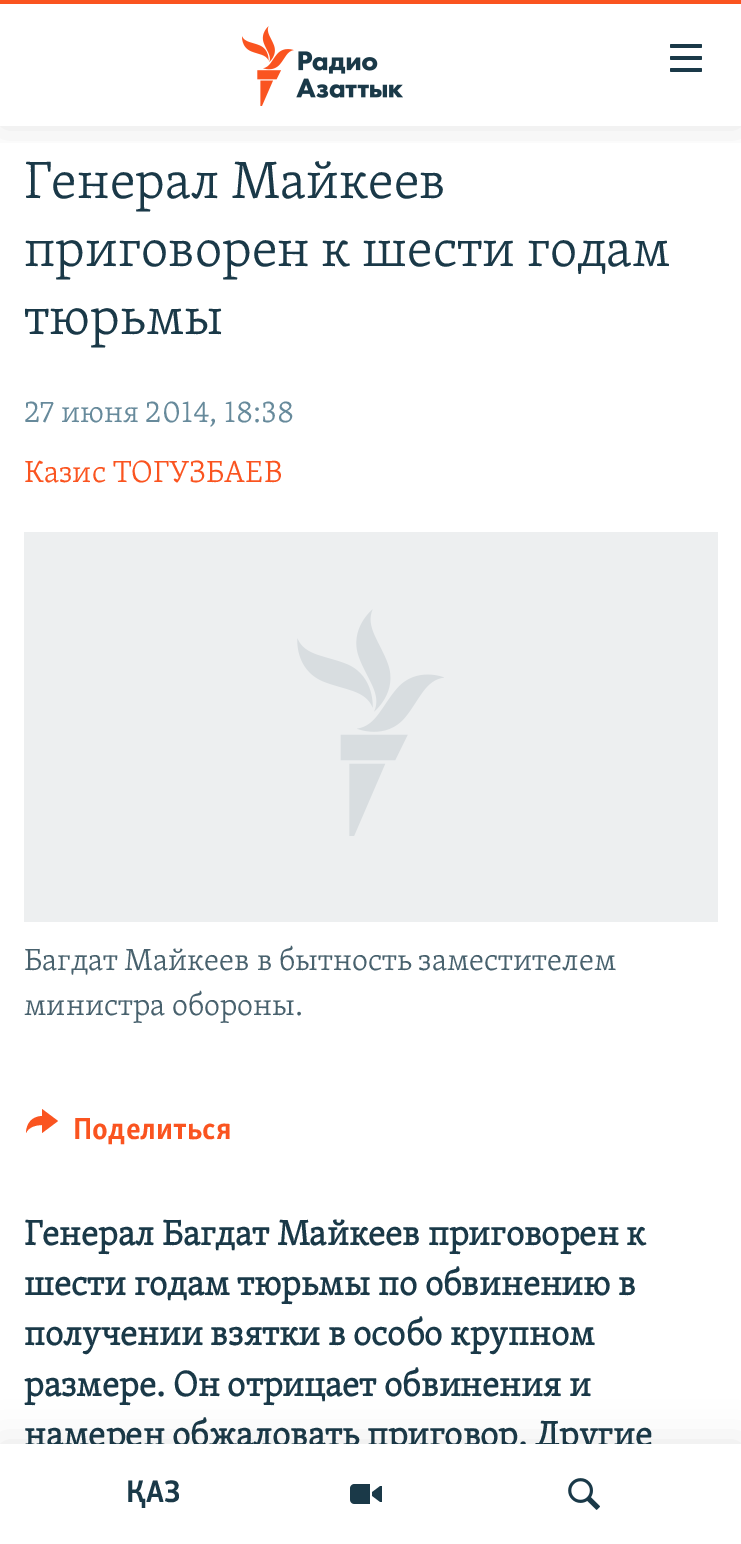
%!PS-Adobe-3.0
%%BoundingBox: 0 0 741 1544
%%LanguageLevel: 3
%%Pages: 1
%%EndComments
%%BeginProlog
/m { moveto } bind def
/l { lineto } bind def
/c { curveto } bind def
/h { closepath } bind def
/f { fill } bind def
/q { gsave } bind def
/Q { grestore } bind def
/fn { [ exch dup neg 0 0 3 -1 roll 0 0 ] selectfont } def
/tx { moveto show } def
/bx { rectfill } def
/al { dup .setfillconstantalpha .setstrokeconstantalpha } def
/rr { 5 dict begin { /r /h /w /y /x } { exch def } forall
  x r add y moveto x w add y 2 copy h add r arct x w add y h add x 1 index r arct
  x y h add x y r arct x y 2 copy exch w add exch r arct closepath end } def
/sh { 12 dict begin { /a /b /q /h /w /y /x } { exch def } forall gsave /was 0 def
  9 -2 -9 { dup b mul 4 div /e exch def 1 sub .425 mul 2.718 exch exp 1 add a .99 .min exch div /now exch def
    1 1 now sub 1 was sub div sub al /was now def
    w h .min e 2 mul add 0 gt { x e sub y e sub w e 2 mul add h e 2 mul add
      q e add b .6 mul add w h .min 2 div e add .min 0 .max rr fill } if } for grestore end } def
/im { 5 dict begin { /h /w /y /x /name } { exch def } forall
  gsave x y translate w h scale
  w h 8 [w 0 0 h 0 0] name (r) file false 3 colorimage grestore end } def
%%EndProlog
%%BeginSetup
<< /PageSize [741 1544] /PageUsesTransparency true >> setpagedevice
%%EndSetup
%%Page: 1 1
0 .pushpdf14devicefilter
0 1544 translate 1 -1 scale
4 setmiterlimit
1 setgray
0 0 741 1544 bx
/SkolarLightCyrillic-Light 54 fn
0.102 0.224 0.282 setrgbcolor
(Генерал Майкеев) 24 198 tx
(приговорен к шести годам) 24 266 tx
(тюрьмы) 24 334 tx
/SkolarLightCyrillic-Light 31.5 fn
0.404 0.541 0.608 setrgbcolor
(27 июня 2014, 18:38) 24 422 tx
0.98 0.329 0.125 setrgbcolor
(Казис ТОГУЗБАЕВ) 24 482 tx
0.929 0.937 0.941 setrgbcolor
24 532 694 390 bx
(image0.raw) 297 609 147 227 im
0.282 0.38 0.427 setrgbcolor
(Багдат Майкеев в бытность заместителем) 24 970 tx
(министра обороны.) 24 1015 tx
0.98 0.329 0.125 setrgbcolor
26 1133 m 26.5 1123 32 1116.5 42 1116 c 42 1109 l 58 1121 l 42 1133 l 42 1125 l 36 1125 28.5 1127 26 1133 c h f
/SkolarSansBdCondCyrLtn-Bold 31.5 fn
(Поделиться) 73 1139 tx
/SkolarLightCyrillic-Bold 36 fn
0.102 0.224 0.282 setrgbcolor
(Генерал Багдат Майкеев приговорен к) 24 1245 tx
(шести годам тюрьмы по обвинению в) 24 1295 tx
(получении взятки в особо крупном) 24 1345 tx
(размере. Он отрицает обвинения и) 24 1396 tx
(намерен обжаловать приговор. Другие) 24 1446 tx
q
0 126 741 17 rectclip
0 setgray
0 0 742 126 0 20 0.1 sh
Q
0.98 0.329 0.125 setrgbcolor
0 0 741 4 bx
(image1.raw) 242 26 161 80 im
(image2.raw) 670 44 32 28 im
0 setgray
0 1444 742 100 0 20 0.1 sh
1 setgray
0 1444 741 100 bx
/SkolarSansBdCondCyrLtn-Bold 32 fn
0.102 0.224 0.282 setrgbcolor
(ҚАЗ) 126 1502 tx
(image3.raw) 350 1484 32 20 im
(image4.raw) 568 1478 32 32 im
.poppdf14devicefilter showpage
%%EOF
